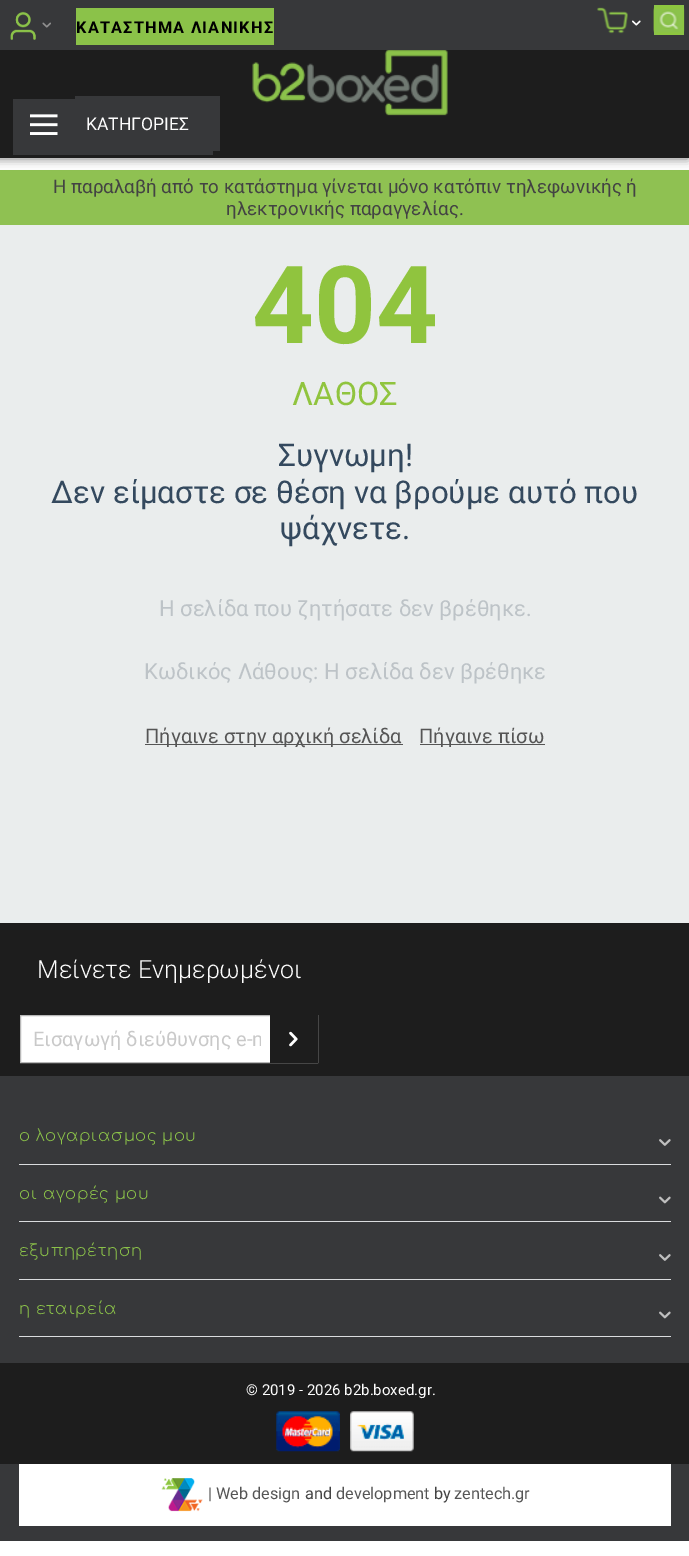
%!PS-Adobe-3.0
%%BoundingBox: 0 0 689 1556
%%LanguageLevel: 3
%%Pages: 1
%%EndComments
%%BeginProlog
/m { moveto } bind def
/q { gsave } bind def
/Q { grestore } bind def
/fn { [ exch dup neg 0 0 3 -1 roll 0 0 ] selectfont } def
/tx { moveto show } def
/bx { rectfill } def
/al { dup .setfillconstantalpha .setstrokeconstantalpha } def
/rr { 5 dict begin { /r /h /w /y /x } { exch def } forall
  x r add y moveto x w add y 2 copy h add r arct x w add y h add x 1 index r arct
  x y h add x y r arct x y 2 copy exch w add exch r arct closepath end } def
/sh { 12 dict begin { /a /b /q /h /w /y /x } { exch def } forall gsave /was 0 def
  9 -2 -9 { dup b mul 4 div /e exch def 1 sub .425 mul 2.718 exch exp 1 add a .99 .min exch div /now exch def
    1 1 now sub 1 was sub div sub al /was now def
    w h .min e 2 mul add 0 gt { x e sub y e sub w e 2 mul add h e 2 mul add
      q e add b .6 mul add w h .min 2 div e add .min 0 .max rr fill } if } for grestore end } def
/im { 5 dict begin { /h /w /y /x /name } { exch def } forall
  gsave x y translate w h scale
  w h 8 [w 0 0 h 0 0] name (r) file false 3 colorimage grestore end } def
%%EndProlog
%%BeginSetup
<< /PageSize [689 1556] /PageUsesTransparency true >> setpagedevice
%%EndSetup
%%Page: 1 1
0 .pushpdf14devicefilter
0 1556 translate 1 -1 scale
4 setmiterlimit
1 setgray
0 0 689 1556 bx
0.918 0.929 0.929 setrgbcolor
0 225 689 698 bx
0.561 0.757 0.322 setrgbcolor
0 170 689 55 bx
0 setgray
-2 1 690 158 0 5 0.5 sh
0.114 setgray
0 50 689 108 bx
0.216 0.22 0.227 setrgbcolor
0 0 689 50 bx
(image0.raw) 10 11 26 29 im
(image1.raw) 42 22 9 6 im
(image2.raw) 597 7 31 27 im
(image3.raw) 632 20 9 6 im
0.545 0.761 0.29 setrgbcolor
654 5 30 30 bx
(image4.raw) 653 5 32 30 im
0.545 0.761 0.286 setrgbcolor
76 8 198 37 bx
/Roboto-Bold 16.25 fn
0 setgray
76 33 m 1.25 0 (ΚΑΤΑΣΤΗΜΑ ΛΙΑΝΙΚΗΣ) ashow
0.216 0.22 0.227 setrgbcolor
13 151 200 4 bx
13 99 62 52 bx
(image5.raw) 30 114 28 21 im
75 96 145 55 bx
/Roboto-Regular 17.5 fn
0.992 setgray
(ΚΑΤΗΓΟΡΙΕΣ) 86 130 tx
(image6.raw) 252 50 196 66 im
/Roboto-Regular 18.75 fn
0.263 setgray
(Η παραλαβή από το κατάστημα γίνεται μόνο κατόπιν τηλεφωνικής ή) 53 193 tx
(ηλεκτρονικής παραγγελίας.) 226 215 tx
/Roboto-Bold 108 fn
0.565 0.769 0.243 setrgbcolor
(404) 252 343 tx
/Roboto-Regular 32.5 fn
(ΛΑΘΟΣ) 292 405 tx
/Roboto-Regular 31.25 fn
0.204 0.286 0.369 setrgbcolor
(Συγνωμη!) 278 466 tx
(Δεν είμαστε σε θέση να βρούμε αυτό που) 51 503 tx
(ψάχνετε.) 280 539 tx
/Roboto-Regular 22 fn
0.741 0.765 0.78 setrgbcolor
(Η σελίδα που ζητήσατε δεν βρέθηκε.) 159 616 tx
(Κωδικός Λάθους: Η σελίδα δεν βρέθηκε) 144 679 tx
0.333 setgray
145 744 258 1 bx
/Roboto-Regular 20 fn
(Πήγαινε στην αρχική σελίδα) 145 743 tx
420 744 125 1 bx
(Πήγαινε πίσω) 419 743 tx
0.216 0.22 0.227 setrgbcolor
0 1076 689 465 bx
0.114 setgray
0 923 689 153 bx
/Roboto-Light 25 fn
0.992 setgray
(Μείνετε Ενημερωμένοι) 37 978 tx
1 setgray
21 1016 249 46 bx
0.718 setgray
20.5 1015.5 297 47 rectstroke
q
33 1028 228 23 rectclip
/Roboto-Regular 20 fn
0.788 setgray
(Εισαγωγή διεύθυνσης e-m) 33 1046 tx
Q
0.114 setgray
270 1015 48 48 bx
(image7.raw) 289 1031 9 16 im
0.855 0.863 0.871 setrgbcolor
19 1164 652 1 bx
/Comfortaa-Light 16.25 fn
0.545 0.761 0.286 setrgbcolor
19 1141 m 0.6 0 (ο λογαριασμος μου) ashow
(image8.raw) 659 1139 12 7 im
0.855 0.863 0.871 setrgbcolor
19 1221 652 1 bx
0.545 0.761 0.286 setrgbcolor
19 1199 m 0.6 0 (οι αγορές μου) ashow
(image9.raw) 659 1196 12 8 im
0.855 0.863 0.871 setrgbcolor
19 1279 652 1 bx
0.545 0.761 0.286 setrgbcolor
19 1256 m 0.6 0 (εξυπηρέτηση) ashow
(image8.raw) 659 1254 12 7 im
0.855 0.863 0.871 setrgbcolor
19 1336 652 1 bx
0.545 0.761 0.286 setrgbcolor
19 1314 m 0.6 0 (η εταιρεία) ashow
(image9.raw) 659 1311 12 8 im
0.114 setgray
0 1363 689 101 bx
/Roboto-Regular 15 fn
0.992 setgray
(© 2019 - 2026 b2b.boxed.gr.) 246 1395 tx
(image10.raw) 276 1411 64 41 im
(image11.raw) 350 1411 64 41 im
1 setgray
19 1464 652 62 bx
(image12.raw) 161 1478 42 34 im
/Roboto-Regular 16.25 fn
0.263 setgray
(|) 208 1499 tx
0.333 setgray
(Web design) 216 1499 tx
0.263 setgray
(and) 305 1499 tx
0.333 setgray
(development) 336 1499 tx
0.263 setgray
(by) 434 1499 tx
0.333 setgray
(zentech.gr) 454 1499 tx
.poppdf14devicefilter showpage
%%EOF
